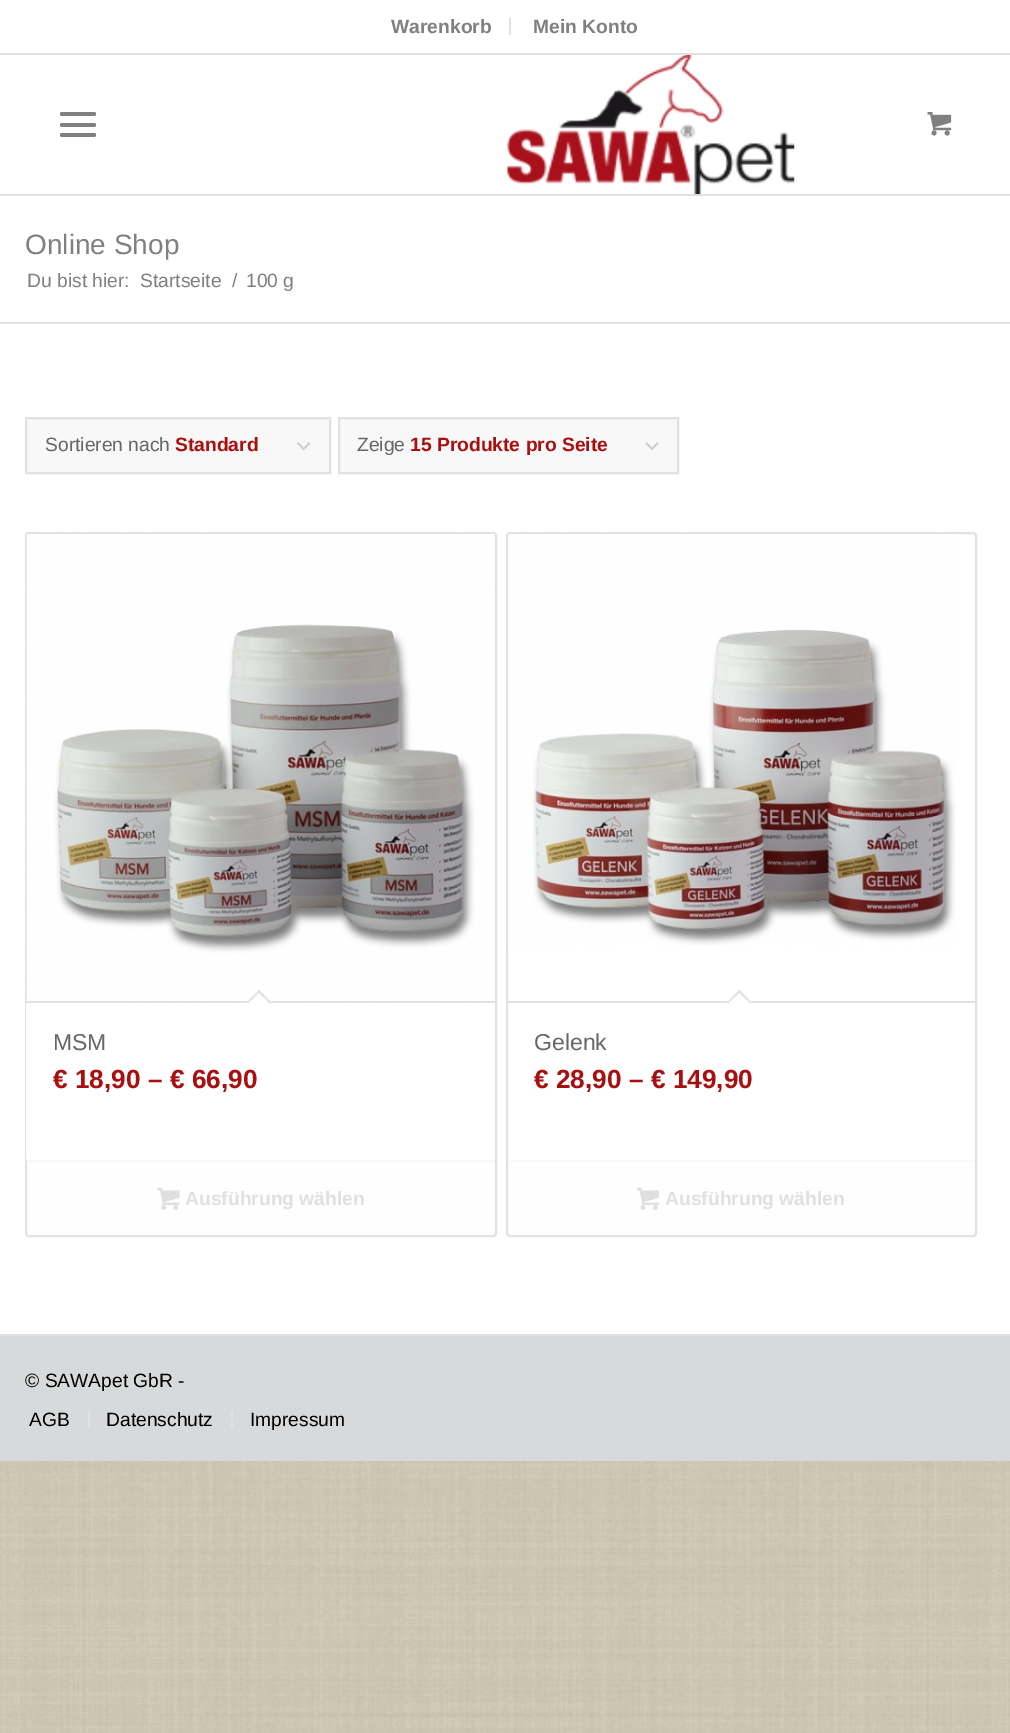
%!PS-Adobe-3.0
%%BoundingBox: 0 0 1010 1733
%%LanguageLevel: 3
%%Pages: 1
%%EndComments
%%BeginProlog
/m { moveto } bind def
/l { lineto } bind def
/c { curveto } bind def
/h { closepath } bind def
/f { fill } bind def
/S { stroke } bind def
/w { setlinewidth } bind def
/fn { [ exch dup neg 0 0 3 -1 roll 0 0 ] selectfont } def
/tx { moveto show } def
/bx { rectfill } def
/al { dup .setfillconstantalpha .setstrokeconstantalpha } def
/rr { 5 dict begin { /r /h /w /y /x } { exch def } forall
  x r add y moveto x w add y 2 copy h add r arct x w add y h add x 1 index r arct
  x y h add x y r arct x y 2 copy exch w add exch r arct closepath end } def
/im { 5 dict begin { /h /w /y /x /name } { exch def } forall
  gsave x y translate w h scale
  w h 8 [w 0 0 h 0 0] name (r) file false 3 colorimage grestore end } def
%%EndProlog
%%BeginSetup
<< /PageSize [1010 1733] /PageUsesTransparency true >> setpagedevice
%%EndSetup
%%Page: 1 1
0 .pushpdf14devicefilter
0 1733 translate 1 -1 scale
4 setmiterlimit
0.839 0.812 0.733 setrgbcolor
0 0 1010 1733 bx
(image0.raw) 0 1461 1010 272 im
1 setgray
0 0 1010 53 bx
0.882 setgray
0 53 1010 2 bx
509 18 2 17 bx
/LiberationSans-Bold 19.25 fn
0.502 setgray
(Warenkorb) 391 33 tx
(Mein Konto) 533 33 tx
1 setgray
0 55 1010 139 bx
0.882 setgray
0 194 1010 2 bx
0.502 setgray
60 123 36 4 2 rr f
60 112 36 4 2 rr f
60 133 36 4 2 rr f
(image1.raw) 507 55 288 140 im
(image2.raw) 927 112 25 24 im
1 setgray
0 196 1010 1138 bx
/LiberationSans-Regular 28 fn
0.502 setgray
(Online Shop) 25 254 tx
/LiberationSans-Regular 19.25 fn
(Du bist hier:) 27 287 tx
(Startseite) 140 287 tx
(/) 232 287 tx
(100 g) 246 287 tx
0.882 setgray
0 322 1010 2 bx
0.973 setgray
27 419 302 53 bx
(image3.raw) 297 442 14 9 im
0.882 setgray
2 w
26 418 304 55 rectstroke
0.4 setgray
(Sortieren nach) 45 451 tx
/LiberationSans-Bold 19.25 fn
0.659 0.063 0.063 setrgbcolor
(Standard) 175 451 tx
0.973 setgray
340 419 337 53 bx
(image4.raw) 645 442 14 9 im
0.882 setgray
339 418 339 55 rectstroke
/LiberationSans-Regular 19.25 fn
0.4 setgray
(Zeige) 357 451 tx
/LiberationSans-Bold 19.25 fn
0.659 0.063 0.063 setrgbcolor
(15 Produkte pro Seite) 410 451 tx
0.882 setgray
26 533 470 703 3 rr S
(image5.raw) 26 534 469 467 im
1 setgray
26 1001 m 495 1001 l 495 1158 l 495 1159 494 1160 493 1160 c 28 1160 l 27 1160 26 1159 26 1158 c h f
0.882 setgray
26 1001 469 2 bx
1 setgray
259 990 m 271.5 1002.5 l 259 1015 l 246.5 1002.5 l h f
0.882 setgray
259 990 m 271.5 1002.5 l 270 1003.5 l 257.5 991.5 l h f
259 990 m 260 991.5 l 248 1003.5 l 246.5 1002.5 l h f
/LiberationSans-Regular 23 fn
0.4 setgray
(MSM) 53 1050 tx
/LiberationSans-Bold 26.25 fn
0.659 0.063 0.063 setrgbcolor
(€ 18,90 – € 66,90) 53 1088 tx
0.2 al
0.973 setgray
26 1160 m 495 1160 l 495 1234 l 495 1235 494 1236 493 1236 c 28 1236 l 27 1236 26 1235 26 1234 c h f
0.882 setgray
26 1160 469 2 bx
1 al
(image6.raw) 157 1187 23 23 im
/LiberationSans-Bold 19.25 fn
0.878 setgray
(Ausführung wählen) 185 1205 tx
0.882 setgray
507 533 469 703 3 rr S
(image7.raw) 508 534 448 412 im
508 1001 467 2 bx
1 setgray
739.5 990 m 751.5 1002.5 l 739.5 1015 l 727 1002.5 l h f
0.882 setgray
739.5 990 m 751.5 1002.5 l 750.5 1003.5 l 738 991.5 l h f
739.5 990 m 740.5 991.5 l 728 1003.5 l 727 1002.5 l h f
/LiberationSans-Regular 23 fn
0.4 setgray
(Gelenk) 534 1050 tx
/LiberationSans-Bold 26.25 fn
0.659 0.063 0.063 setrgbcolor
(€ 28,90 – € 149,90) 534 1088 tx
0.2 al
0.973 setgray
508 1160 m 975 1160 l 975 1234 l 975 1235 974 1236 973 1236 c 510 1236 l 509 1236 508 1235 508 1234 c h f
1 al
0.976 setgray
508 1160 467 2 bx
(image8.raw) 637 1187 22 23 im
/LiberationSans-Bold 19.25 fn
0.878 setgray
(Ausführung wählen) 665 1205 tx
0.847 0.851 0.855 setrgbcolor
0 1336 1010 125 bx
0.882 setgray
0 1334 1010 2 bx
/LiberationSans-Regular 19.25 fn
0 setgray
(© SAWApet GbR -) 25 1387 tx
(AGB) 29 1426 tx
0.882 setgray
88 1411 2 17 bx
0 setgray
(Datenschutz) 106 1426 tx
0.882 setgray
231 1411 2 17 bx
0 setgray
(Impressum) 250 1426 tx
.poppdf14devicefilter showpage
%%EOF
